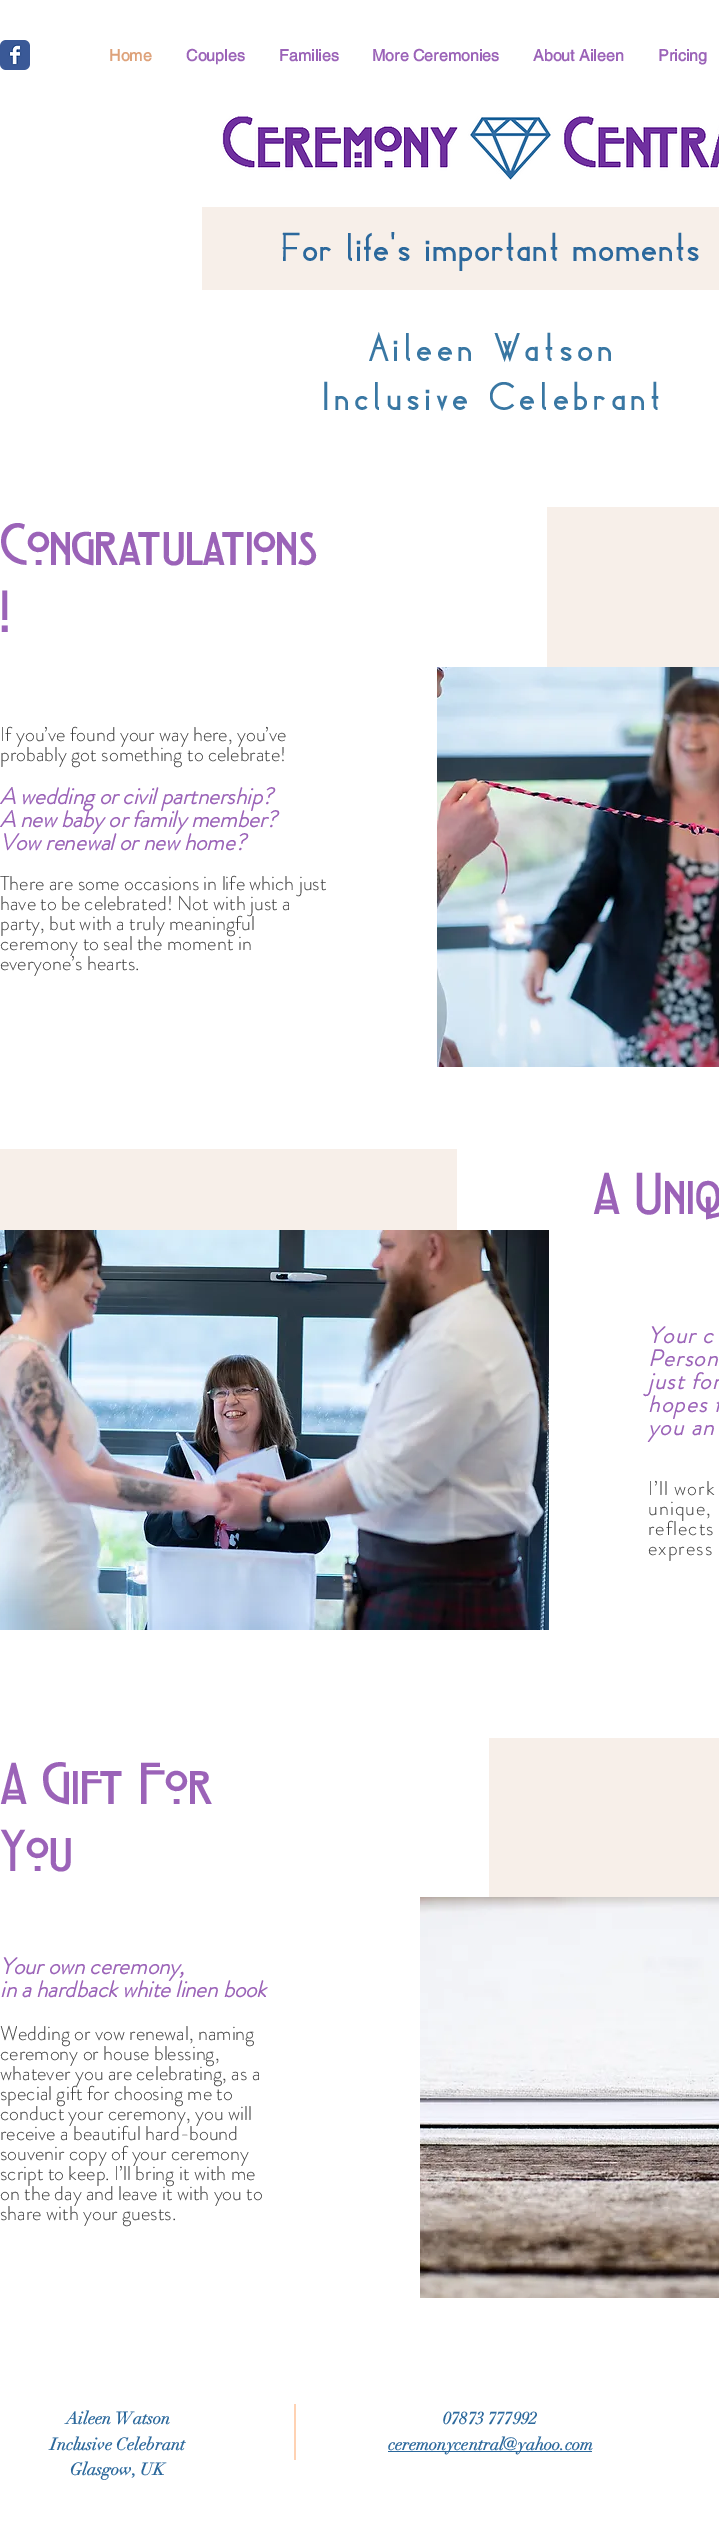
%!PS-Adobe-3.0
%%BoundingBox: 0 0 719 2533
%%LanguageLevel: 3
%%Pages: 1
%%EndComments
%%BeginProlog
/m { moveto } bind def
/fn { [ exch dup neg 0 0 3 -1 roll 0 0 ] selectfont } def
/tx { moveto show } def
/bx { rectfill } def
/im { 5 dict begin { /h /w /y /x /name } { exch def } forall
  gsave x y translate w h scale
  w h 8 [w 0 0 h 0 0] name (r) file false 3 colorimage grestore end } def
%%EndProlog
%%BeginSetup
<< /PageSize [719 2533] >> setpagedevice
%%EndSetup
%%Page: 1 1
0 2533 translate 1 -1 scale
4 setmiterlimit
1 setgray
0 0 719 2533 bx
(image0.raw) 0 40 30 30 im
/helvetica-Bold 16 fn
0.871 0.635 0.478 setrgbcolor
(Home) 109 61 tx
0.608 0.388 0.722 setrgbcolor
(Couples) 186 61 tx
(Families) 279 61 tx
(More Ceremonies) 372 61 tx
(About Aileen) 533 61 tx
(Pricing) 658 61 tx
(image1.raw) 221 116 498 64 im
0.969 0.937 0.914 setrgbcolor
202 207 517 83 bx
/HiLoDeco-Bold 40 fn
0.169 0.408 0.612 setrgbcolor
(For life's important moments) 280 261 tx
0.224 0.467 0.639 setrgbcolor
368 361 m 3.6 0 (Aileen Watson) ashow
321 410 m 3.6 0 (Inclusive Celebrant) ashow
/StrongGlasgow-Regular 54 fn
0.608 0.388 0.722 setrgbcolor
0 565 m -1.1 0 (Congratulations) ashow
0 632 m -1.1 0 (!) ashow
0.969 0.937 0.914 setrgbcolor
547 507 172 160 bx
/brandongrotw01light-Light 20 fn
0.255 setgray
(If you’ve found your way here, you’ve) 0 741 tx
(probably got something to celebrate!) 0 761 tx
/brandongrotw01light-BoldItalic 23 fn
0.608 0.388 0.722 setrgbcolor
(A wedding or civil partnership?) 0 804 tx
(A new baby or family member?) 0 827 tx
(Vow renewal or new home?) 0 850 tx
/brandongrotw01light-Light 20 fn
0.255 setgray
(There are some occasions in life which just) 0 890 tx
(have to be celebrated! Not with just a) 0 910 tx
(party, but with a truly meaningful) 0 930 tx
(ceremony to seal the moment in) 0 950 tx
(everyone’s hearts.) 0 970 tx
(image2.raw) 437 667 282 400 im
0.969 0.937 0.914 setrgbcolor
0 1149 457 81 bx
/StrongGlasgow-Regular 54 fn
0.608 0.388 0.722 setrgbcolor
(A Uniq) 593 1214 tx
(image3.raw) 0 1230 549 400 im
/brandongrotw01light-BoldItalic 23 fn
648 1343 m 1.25 0 (Your c) ashow
648 1366 m 1.25 0 (Person) ashow
648 1389 m 1.25 0 (just for) ashow
648 1412 m 1.25 0 (hopes f) ashow
648 1435 m 1.25 0 (you an) ashow
/brandongrotw01light-Light 20 fn
0.255 setgray
648 1495 m 1 0 (I’ll work) ashow
648 1515 m 1 0 (unique,) ashow
648 1535 m 1 0 (reflects) ashow
648 1555 m 1 0 (express) ashow
/StrongGlasgow-Regular 54 fn
0.608 0.388 0.722 setrgbcolor
(A Gift For) 0 1804 tx
(You) 0 1871 tx
0.969 0.937 0.914 setrgbcolor
489 1738 230 159 bx
/brandongrotw01light-BoldItalic 23 fn
0.608 0.388 0.722 setrgbcolor
(Your own ceremony,) 0 1974 tx
(in a hardback white linen book) 0 1997 tx
/brandongrotw01light-Light 20 fn
0.255 setgray
(Wedding or vow renewal, naming) 0 2040 tx
(ceremony or house blessing,) 0 2060 tx
(whatever you are celebrating, as a) 0 2080 tx
(special gift for choosing me to) 0 2100 tx
(conduct your ceremony, you will) 0 2120 tx
(receive a beautiful hard-bound) 0 2140 tx
(souvenir copy of your ceremony) 0 2160 tx
(script to keep. I’ll bring it with me) 0 2180 tx
(on the day and leave it with you to) 0 2200 tx
(share with your guests.) 0 2220 tx
(image4.raw) 420 1897 299 401 im
/didot-Bold 17 fn
0.169 0.408 0.612 setrgbcolor
(Aileen Watson) 66 2424 tx
(Inclusive Celebrant) 50 2450 tx
(Glasgow, UK) 70 2475 tx
1 0.824 0.702 setrgbcolor
294 2404 2 56 bx
0.169 0.408 0.612 setrgbcolor
(07873 777992) 443 2424 tx
388 2451 204 1 bx
(ceremonycentral@yahoo.com) 388 2450 tx
showpage
%%EOF
